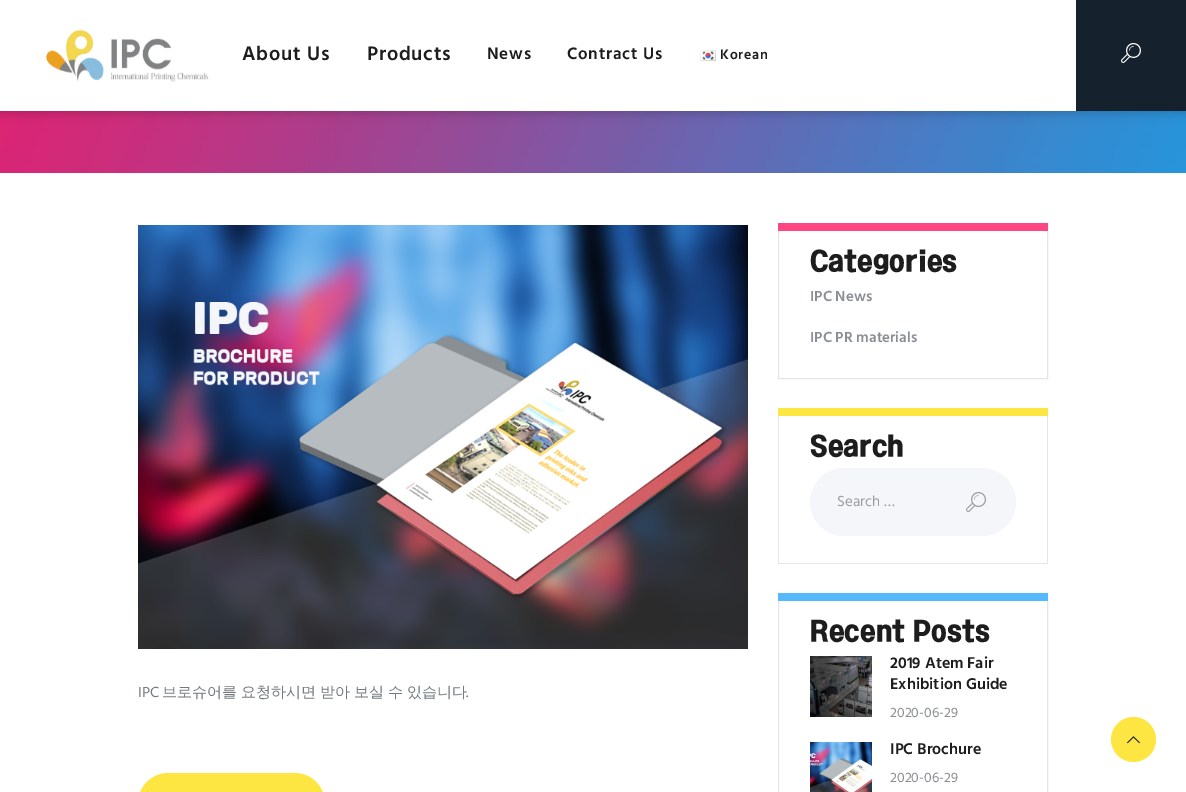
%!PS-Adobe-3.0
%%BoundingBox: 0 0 1186 792
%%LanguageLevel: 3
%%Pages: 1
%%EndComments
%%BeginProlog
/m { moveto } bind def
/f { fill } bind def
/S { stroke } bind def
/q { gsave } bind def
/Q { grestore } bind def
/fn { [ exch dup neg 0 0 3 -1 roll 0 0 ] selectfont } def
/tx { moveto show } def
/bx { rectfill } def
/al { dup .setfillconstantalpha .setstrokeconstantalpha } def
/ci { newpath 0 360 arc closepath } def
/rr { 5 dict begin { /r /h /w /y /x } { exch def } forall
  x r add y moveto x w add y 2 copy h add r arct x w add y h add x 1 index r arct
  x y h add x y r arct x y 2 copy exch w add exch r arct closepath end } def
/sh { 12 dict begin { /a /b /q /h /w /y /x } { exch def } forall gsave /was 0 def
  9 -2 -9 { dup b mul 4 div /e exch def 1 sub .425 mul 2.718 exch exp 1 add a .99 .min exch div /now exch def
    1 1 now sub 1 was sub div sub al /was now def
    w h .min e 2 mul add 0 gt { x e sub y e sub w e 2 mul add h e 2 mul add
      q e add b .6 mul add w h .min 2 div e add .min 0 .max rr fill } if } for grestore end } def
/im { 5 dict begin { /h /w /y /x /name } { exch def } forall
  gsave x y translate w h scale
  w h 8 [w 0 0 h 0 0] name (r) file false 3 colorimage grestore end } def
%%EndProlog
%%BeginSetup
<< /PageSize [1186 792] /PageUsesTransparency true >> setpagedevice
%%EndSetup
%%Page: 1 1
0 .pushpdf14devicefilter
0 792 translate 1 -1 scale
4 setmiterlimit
1 setgray
0 0 1186 792 bx
(image3.raw) 0 111 1186 62 im
0 setgray
-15 2 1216 111 0 5 0.2 sh
1 setgray
0 0 1076 111 bx
(image0.raw) 46 29 163 53 im
/Hind-SemiBold 20 fn
0.114 setgray
242 60 m 0.75 0 (About Us) ashow
367 60 m 0.75 0 (Products) ashow
/Hind-SemiBold 17 fn
487 59 m 0.75 0 (News) ashow
567 59 m 0.75 0 (Contract Us) ashow
(image1.raw) 700 50 16 11 im
/Hind-SemiBold 14 fn
720 59 m 0.75 0 (Korean) ashow
0.082 0.129 0.173 setrgbcolor
1076 0 110 111 bx
(image2.raw) 1121 43 20 20 im
(image4.raw) 138 225 610 424 im
/Hind-Regular 15 fn
0.451 0.478 0.502 setrgbcolor
(IPC) 138 697 tx
/WenQuanYiZenHei-Medium 15 fn
162 697 m -0.5 0 32 (브로슈어를 요청하시면 받아 보실 수 있습니다) widthshow
/Hind-Regular 15 fn
(.) 466 697 tx
0.992 0.902 0.259 setrgbcolor
138 773 187 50 30.5 rr f
0.898 setgray
778.5 223.5 269 155 rectstroke
0.992 0.275 0.51 setrgbcolor
778 223 270 8 bx
/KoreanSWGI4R-Regular 26.5 fn
0.114 setgray
(Categories) 810 269 tx
/Hind-SemiBold 15 fn
0.545 0.561 0.584 setrgbcolor
(IPC News) 810 301 tx
(IPC PR materials) 810 342 tx
0.898 setgray
1047 408 1 156 bx
778 563 270 1 bx
778 408 1 156 bx
0.992 0.902 0.259 setrgbcolor
778 408 270 8 bx
/KoreanSWGI4R-Regular 26.5 fn
0.114 setgray
(Search) 810 454 tx
0.957 0.965 0.98 setrgbcolor
810.5 468.5 205 67 33.5 rr q f Q
S
/Hind-Regular 15 fn
0.604 0.616 0.624 setrgbcolor
(Search …) 837 506 tx
(image5.raw) 966 492 20 20 im
0.898 setgray
778.5 593.5 269 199 rectstroke
0.329 0.725 0.992 setrgbcolor
778 593 270 8 bx
/KoreanSWGI4R-Regular 26.5 fn
0.114 setgray
(Recent Posts) 810 639 tx
(image6.raw) 810 656 62 61 im
/Hind-SemiBold 16 fn
(2019 Atem Fair) 890 668 tx
(Exhibition Guide) 890 689 tx
/Hind-Regular 14 fn
0.545 0.561 0.584 setrgbcolor
(2020-06-29) 890 717 tx
(image7.raw) 810 742 62 50 im
/Hind-SemiBold 16 fn
0.114 setgray
(IPC Brochure) 890 754 tx
/Hind-Regular 14 fn
0.545 0.561 0.584 setrgbcolor
(2020-06-29) 890 782 tx
0.992 0.902 0.259 setrgbcolor
1133.5 739.5 22.5 ci f
(image8.raw) 1127 736 13 8 im
.poppdf14devicefilter showpage
%%EOF
